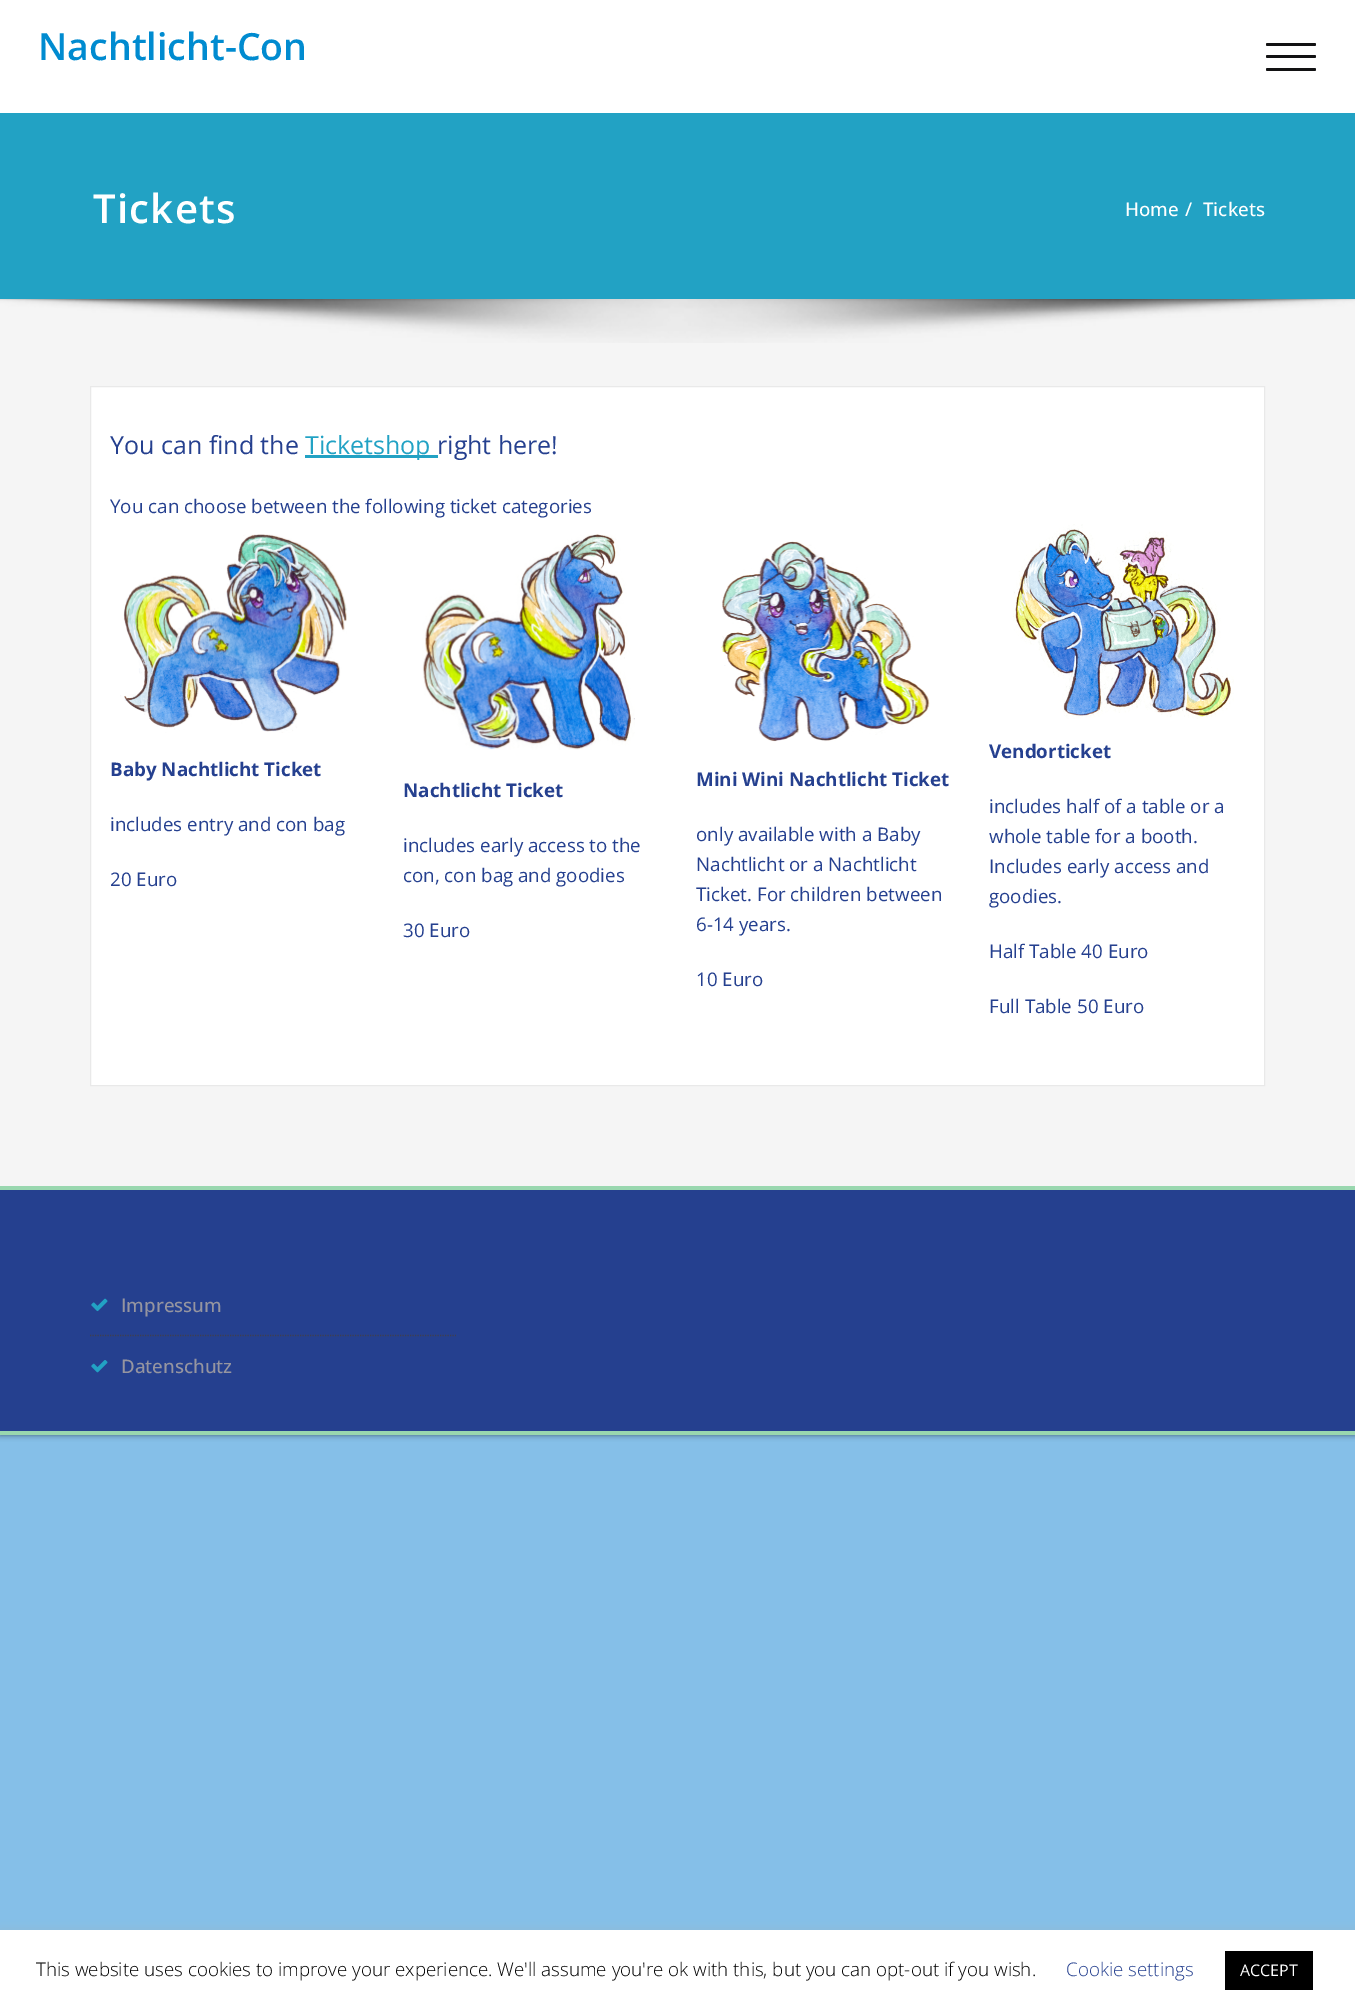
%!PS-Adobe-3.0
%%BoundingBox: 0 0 1355 2011
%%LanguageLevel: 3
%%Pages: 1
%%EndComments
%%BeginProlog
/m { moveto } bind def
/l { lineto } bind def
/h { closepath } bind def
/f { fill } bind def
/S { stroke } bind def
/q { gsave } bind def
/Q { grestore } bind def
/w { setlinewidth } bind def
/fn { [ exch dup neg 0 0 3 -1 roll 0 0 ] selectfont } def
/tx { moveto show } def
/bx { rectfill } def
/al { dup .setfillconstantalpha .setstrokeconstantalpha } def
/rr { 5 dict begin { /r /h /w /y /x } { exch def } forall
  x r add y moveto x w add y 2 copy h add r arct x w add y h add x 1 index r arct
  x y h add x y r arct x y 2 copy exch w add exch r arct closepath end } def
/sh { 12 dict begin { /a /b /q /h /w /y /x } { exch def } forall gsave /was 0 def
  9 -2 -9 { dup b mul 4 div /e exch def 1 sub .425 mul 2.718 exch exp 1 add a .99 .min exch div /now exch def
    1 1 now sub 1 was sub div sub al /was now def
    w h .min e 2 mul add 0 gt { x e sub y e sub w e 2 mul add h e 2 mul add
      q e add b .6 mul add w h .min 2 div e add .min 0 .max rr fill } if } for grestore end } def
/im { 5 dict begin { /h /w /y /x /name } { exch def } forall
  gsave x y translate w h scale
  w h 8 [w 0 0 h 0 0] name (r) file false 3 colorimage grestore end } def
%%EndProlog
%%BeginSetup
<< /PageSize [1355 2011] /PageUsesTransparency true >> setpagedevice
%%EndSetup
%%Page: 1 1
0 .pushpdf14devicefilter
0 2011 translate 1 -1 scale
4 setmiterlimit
0.522 0.749 0.91 setrgbcolor
0 0 1355 2011 bx
0 setgray
0 0 1355 1435 0 3 0.5 sh
0.961 setgray
0 299 1355 887 bx
1 setgray
0 0 1355 113 bx
/OpenSans-SemiBold 37.5 fn
0 0.545 0.816 setrgbcolor
(Nachtlicht-Con) 38 60 tx
0.071 0.071 0.075 setrgbcolor
1266 43 50 3 1.5 rr f
1266 55 50 3 1.5 rr f
1266 68 50 3 1.5 rr f
0.133 0.635 0.769 setrgbcolor
0 113 1355 186 bx
/OpenSans-SemiBold 40 fn
1 setgray
93 223 m 1.25 0 (Tickets) ashow
/OpenSans-Medium 18.75 fn
(Home) 1125 216 tx
(/) 1185 216 tx
(Tickets) 1203 216 tx
(image0.raw) 0 299 1355 44 im
90.5 386.5 m 1264.5 386.5 l 1264.5 1085.5 l 90.5 1085.5 l h q f Q
0.914 setgray
S
/OpenSans-Regular 25 fn
0.145 0.251 0.561 setrgbcolor
(You can find the) 110 454 tx
0.133 0.635 0.769 setrgbcolor
305 455 133 3 bx
(Ticketshop) 305 454 tx
0.145 0.251 0.561 setrgbcolor
(right here!) 437 454 tx
/OpenSans-Regular 18.75 fn
(You can choose between the following ticket categories) 110 513 tx
(image1.raw) 120 534 227 199 im
/OpenSans-Bold 18.75 fn
(Baby Nachtlicht Ticket) 110 776 tx
/OpenSans-Regular 18.75 fn
(includes entry and con bag) 110 831 tx
(20 Euro) 110 886 tx
(image2.raw) 422 534 213 216 im
/OpenSans-Bold 18.75 fn
(Nachtlicht Ticket) 403 797 tx
/OpenSans-Regular 18.75 fn
(includes early access to the) 403 852 tx
(con, con bag and goodies) 403 882 tx
(30 Euro) 403 937 tx
(image3.raw) 721 541 209 201 im
/OpenSans-Bold 18.75 fn
(Mini Wini Nachtlicht Ticket) 696 786 tx
/OpenSans-Regular 18.75 fn
(only available with a Baby) 696 841 tx
(Nachtlicht or a Nachtlicht) 696 871 tx
(Ticket. For children between) 696 901 tx
(6-14 years.) 696 931 tx
(10 Euro) 696 986 tx
(image4.raw) 1013 524 221 195 im
/OpenSans-Bold 18.75 fn
(Vendorticket) 989 758 tx
/OpenSans-Regular 18.75 fn
(includes half of a table or a) 989 813 tx
(whole table for a booth.) 989 843 tx
(Includes early access and) 989 873 tx
(goodies.) 989 903 tx
(Half Table 40 Euro) 989 958 tx
(Full Table 50 Euro) 989 1013 tx
0 1190 1355 241 bx
0.6 0.843 0.686 setrgbcolor
0 1186 1355 4 bx
0 1431 1355 4 bx
0.251 0.247 0.306 setrgbcolor
1.2 w
[1.25 1.25] 0 setdash
90 1335.5 m 456 1335.5 l S
(image5.raw) 91 1298 17 14 im
/OpenSans-Medium 18.75 fn
0.584 0.584 0.627 setrgbcolor
(Impressum) 121 1312 tx
(image6.raw) 91 1360 17 13 im
(Datenschutz) 121 1373 tx
0.675 0.671 0.671 setrgbcolor
0 1929 1355 81 0 6 0.3 sh
1 setgray
0 1930 1355 81 bx
/OpenSans-Light 18.75 fn
0 setgray
(This website uses cookies to improve your experience. We'll assume you're ok with this, but you can opt-out if you wish.) 36 1976 tx
0.145 0.251 0.561 setrgbcolor
(Cookie settings) 1066 1976 tx
0 setgray
1225 1951 88 39 bx
/OpenSans-Regular 16 fn
1 setgray
(ACCEPT) 1240 1976 tx
.poppdf14devicefilter showpage
%%EOF
